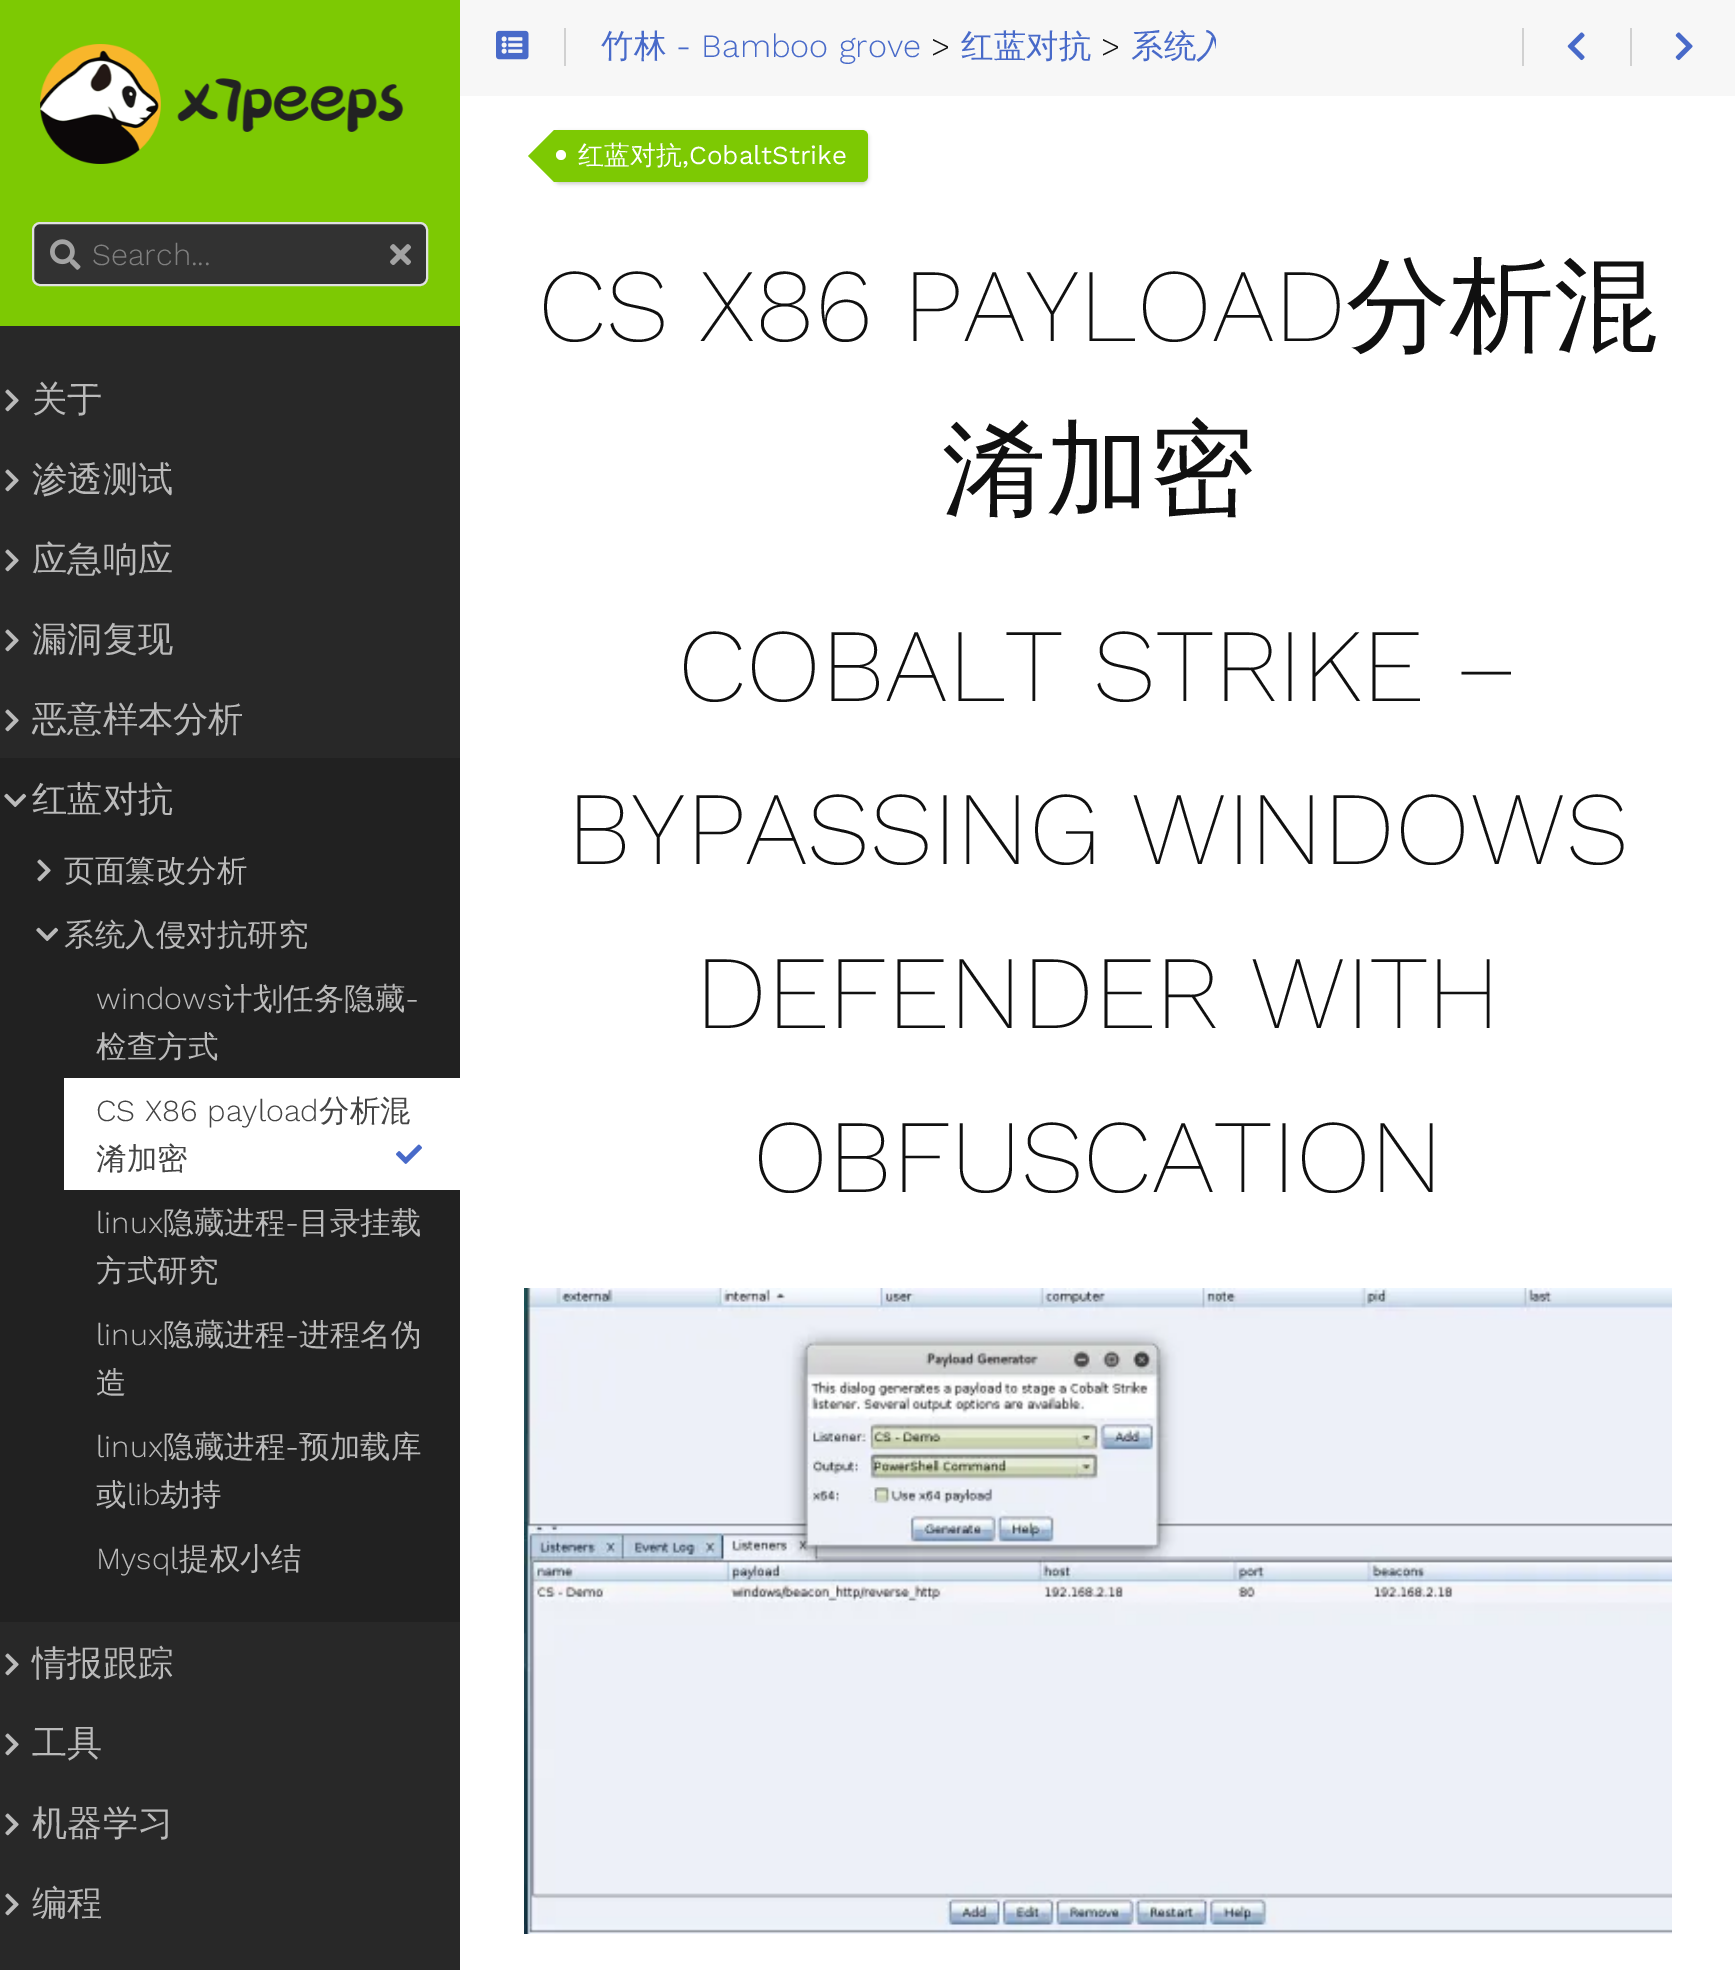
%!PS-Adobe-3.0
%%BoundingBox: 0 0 1735 1970
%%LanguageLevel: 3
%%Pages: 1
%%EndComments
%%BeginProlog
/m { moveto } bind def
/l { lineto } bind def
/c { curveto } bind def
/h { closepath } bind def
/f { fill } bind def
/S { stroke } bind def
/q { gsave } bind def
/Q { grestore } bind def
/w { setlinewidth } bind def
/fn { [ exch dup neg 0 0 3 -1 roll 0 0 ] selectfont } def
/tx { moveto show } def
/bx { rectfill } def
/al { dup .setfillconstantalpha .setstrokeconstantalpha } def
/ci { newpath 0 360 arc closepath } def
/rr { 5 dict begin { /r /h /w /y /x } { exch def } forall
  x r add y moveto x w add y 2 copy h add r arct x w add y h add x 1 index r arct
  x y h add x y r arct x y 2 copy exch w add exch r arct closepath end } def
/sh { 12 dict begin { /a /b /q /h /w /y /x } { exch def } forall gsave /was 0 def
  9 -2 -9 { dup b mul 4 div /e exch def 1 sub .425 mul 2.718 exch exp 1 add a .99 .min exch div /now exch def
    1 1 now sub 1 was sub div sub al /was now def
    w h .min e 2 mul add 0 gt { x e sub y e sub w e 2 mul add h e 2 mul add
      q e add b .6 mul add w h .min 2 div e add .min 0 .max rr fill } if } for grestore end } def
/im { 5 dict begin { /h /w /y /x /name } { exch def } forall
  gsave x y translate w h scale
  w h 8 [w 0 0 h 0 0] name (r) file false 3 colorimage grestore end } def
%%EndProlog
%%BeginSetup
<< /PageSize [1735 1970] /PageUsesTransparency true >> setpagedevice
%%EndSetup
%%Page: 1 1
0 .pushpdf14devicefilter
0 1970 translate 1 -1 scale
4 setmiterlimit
1 setgray
0 0 1735 1970 bx
0.157 setgray
0 326 460 1644 bx
0.49 0.788 0.012 setrgbcolor
0 0 460 326 bx
(image0.raw) 40 44 364 120 im
0.196 setgray
33 223 394 62 7 rr q f Q
0.878 setgray
2 w
S
(image1.raw) 50 239 31 31 im
/WorkSans-Light 30.5 fn
0.502 setgray
(Search...) 92 265 tx
(image2.raw) 390 244 21 21 im
(image3.raw) 5 389 14 23 im
/WenQuanYiZenHei-Medium 35.25 fn
0.729 setgray
(关于) 32 411 tx
(image3.raw) 5 469 14 23 im
(渗透测试) 32 491 tx
(image3.raw) 5 549 14 23 im
(应急响应) 32 571 tx
(image3.raw) 5 629 14 23 im
(漏洞复现) 32 651 tx
(image3.raw) 5 709 14 23 im
(恶意样本分析) 32 731 tx
0.129 setgray
0 758 460 864 bx
(image4.raw) 4 793 23 14 im
0.729 setgray
(红蓝对抗) 32 811 tx
(image5.raw) 37 859 14 23 im
/WenQuanYiZenHei-Medium 30.5 fn
(页面篡改分析) 64 881 tx
(image4.raw) 36 927 23 14 im
(系统入侵对抗研究) 64 945 tx
/WorkSans-Light 30.5 fn
(windows) 96 1009 tx
/WenQuanYiZenHei-Medium 30.5 fn
(计划任务隐藏) 222 1009 tx
/WorkSans-Light 30.5 fn
(-) 405 1009 tx
/WenQuanYiZenHei-Medium 30.5 fn
(检查方式) 96 1057 tx
1 setgray
64 1078 396 112 bx
/WorkSans-Light 30.5 fn
0.267 setgray
(CS X86 payload) 96 1121 tx
/WenQuanYiZenHei-Medium 30.5 fn
(分析混) 319 1121 tx
(淆加密) 96 1169 tx
(image6.raw) 396 1144 26 20 im
/WorkSans-Light 30.5 fn
0.729 setgray
(linux) 96 1233 tx
/WenQuanYiZenHei-Medium 30.5 fn
(隐藏进程) 163 1233 tx
/WorkSans-Light 30.5 fn
(-) 285 1233 tx
/WenQuanYiZenHei-Medium 30.5 fn
(目录挂载) 299 1233 tx
(方式研究) 96 1281 tx
/WorkSans-Light 30.5 fn
(linux) 96 1345 tx
/WenQuanYiZenHei-Medium 30.5 fn
(隐藏进程) 163 1345 tx
/WorkSans-Light 30.5 fn
(-) 285 1345 tx
/WenQuanYiZenHei-Medium 30.5 fn
(进程名伪) 299 1345 tx
(造) 96 1393 tx
/WorkSans-Light 30.5 fn
(linux) 96 1457 tx
/WenQuanYiZenHei-Medium 30.5 fn
(隐藏进程) 163 1457 tx
/WorkSans-Light 30.5 fn
(-) 285 1457 tx
/WenQuanYiZenHei-Medium 30.5 fn
(预加载库) 299 1457 tx
(或) 96 1505 tx
/WorkSans-Light 30.5 fn
(lib) 127 1505 tx
/WenQuanYiZenHei-Medium 30.5 fn
(劫持) 160 1505 tx
/WorkSans-Light 30.5 fn
(Mysql) 96 1569 tx
/WenQuanYiZenHei-Medium 30.5 fn
(提权小结) 179 1569 tx
(image3.raw) 5 1653 14 23 im
/WenQuanYiZenHei-Medium 35.25 fn
(情报跟踪) 32 1675 tx
(image3.raw) 5 1733 14 23 im
(工具) 32 1755 tx
(image3.raw) 5 1813 14 23 im
(机器学习) 32 1835 tx
(image3.raw) 5 1893 14 23 im
(编程) 32 1915 tx
0.969 setgray
460 0 1275 96 bx
0.82 setgray
564 28 2 38 bx
(image7.raw) 496 30 33 30 im
/WenQuanYiZenHei-Medium 32.5 fn
0.282 0.416 0.788 setrgbcolor
(竹林) 601 57 tx
/WorkSans-Light 32.5 fn
(- Bamboo grove) 676 57 tx
0.063 setgray
(>) 931 57 tx
/WenQuanYiZenHei-Medium 32.5 fn
0.282 0.416 0.788 setrgbcolor
(红蓝对抗) 961 57 tx
/WorkSans-Light 32.5 fn
0.063 setgray
(>) 1101 57 tx
q
460 26 756 46 rectclip
/WenQuanYiZenHei-Medium 32.5 fn
0.282 0.416 0.788 setrgbcolor
(系统入) 1131 57 tx
Q
0.82 setgray
1522 28 2 38 bx
(image8.raw) 1567 32 18 29 im
1630 28 2 38 bx
(image9.raw) 1675 32 18 29 im
0 setgray
554 132 314 52 6 2 0.2 sh
0.49 0.788 0.012 setrgbcolor
554 130 m 862 130 l 865.5 130 868 132.5 868 136 c 868 176 l 868 179.5 865.5 182 862 182 c 554 182 l h f
554 130 m 554 182 l 528 156 l h f
1 setgray
561 155 5 ci f
/WenQuanYiZenHei-Medium 26 fn
(红蓝对抗) 578 164 tx
/WorkSans-Regular 26 fn
(,CobaltStrike) 682 164 tx
/WorkSans-ExtraLight 104 fn
0.063 setgray
(CS X86 PAYLOAD) 538 341 tx
/WenQuanYiZenHei-Medium 104 fn
(分析混) 1346 341 tx
(淆加密) 942 505 tx
/WorkSans-ExtraLight 104 fn
(COBALT STRIKE –) 678 701 tx
(BYPASSING WINDOWS) 567 864 tx
(DEFENDER WITH) 695 1028 tx
(OBFUSCATION) 753 1192 tx
(image10.raw) 524 1288 1148 646 im
.poppdf14devicefilter showpage
%%EOF
